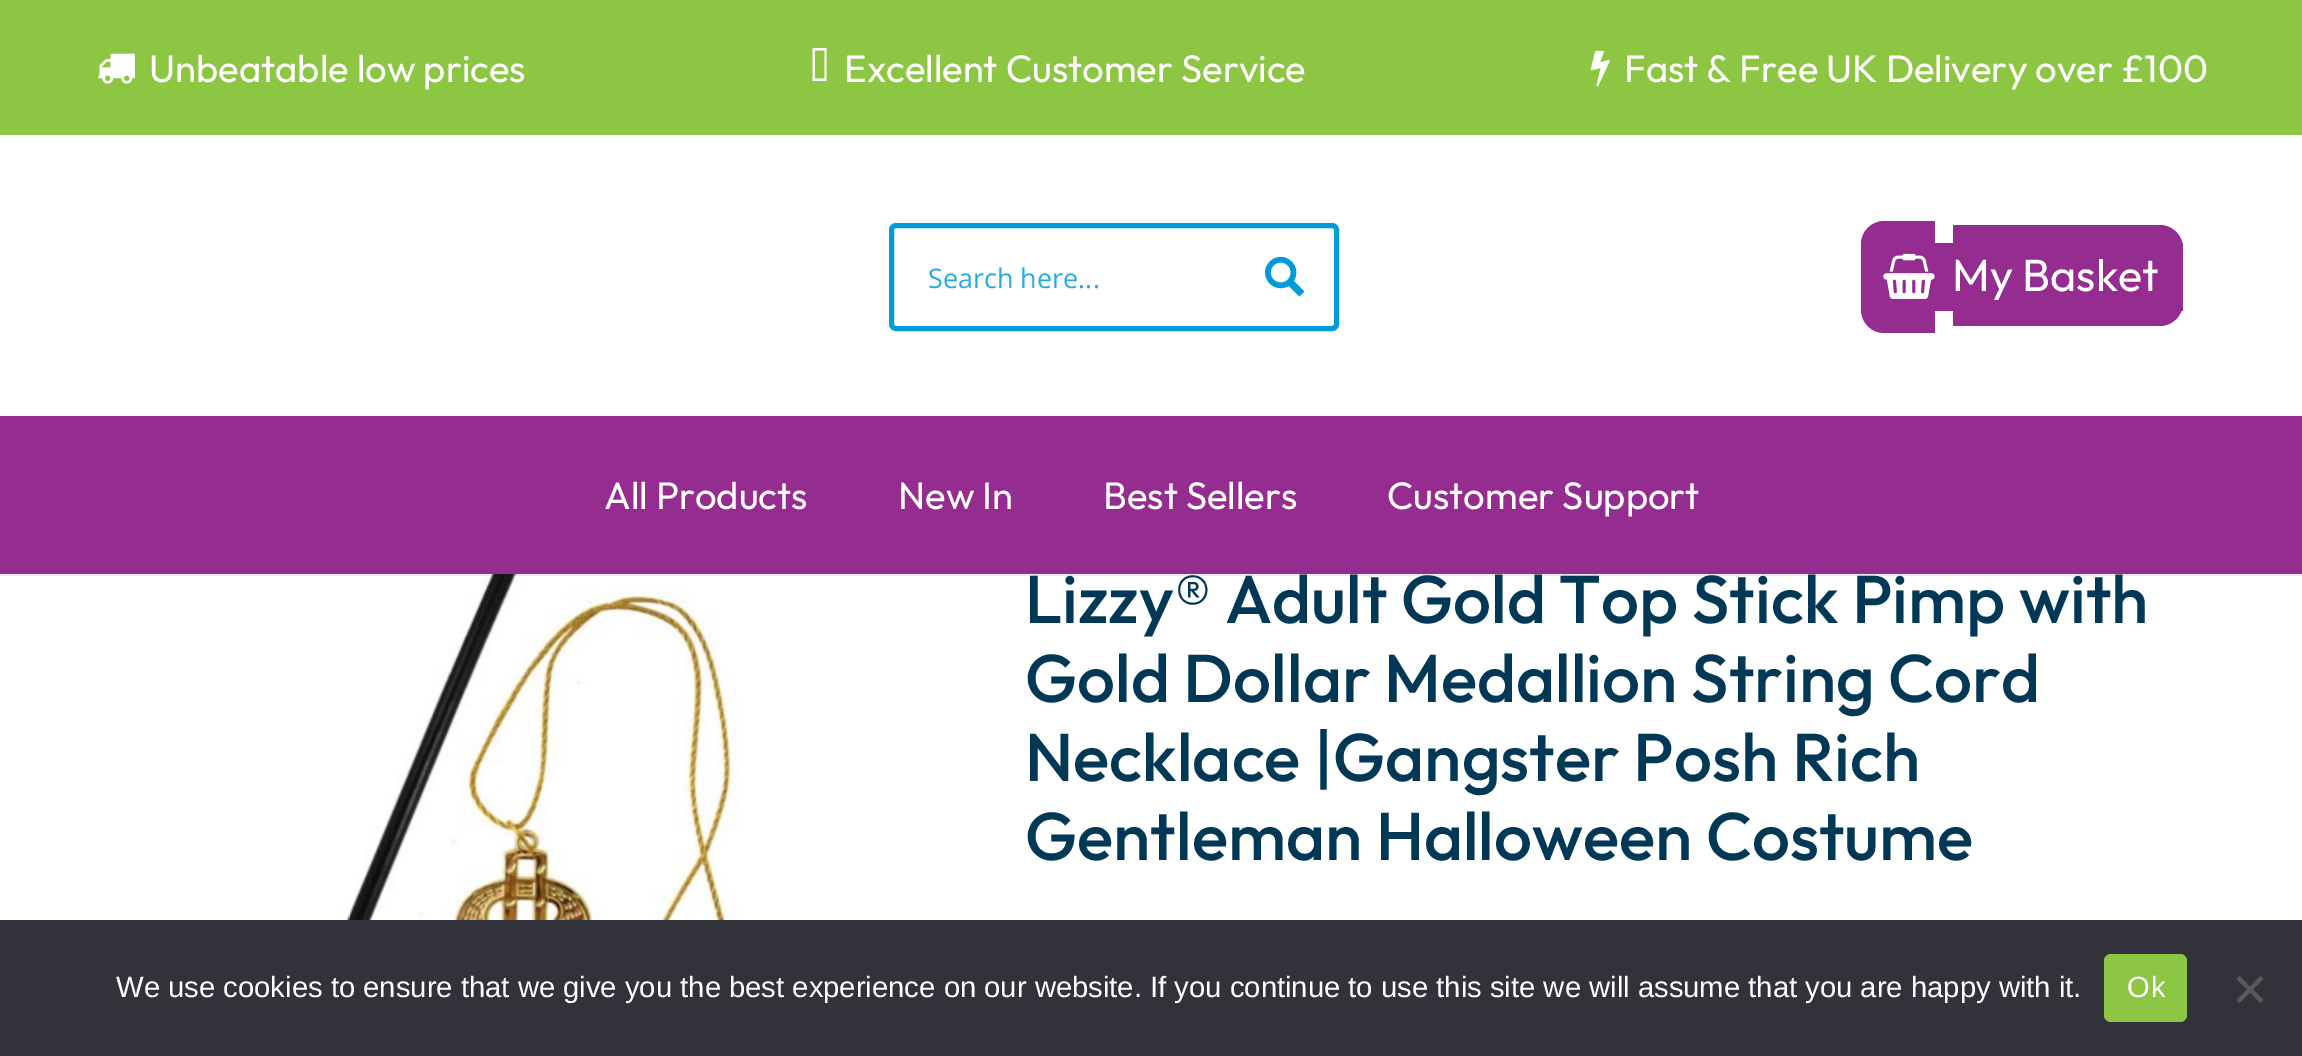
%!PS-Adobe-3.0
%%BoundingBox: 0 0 2302 1056
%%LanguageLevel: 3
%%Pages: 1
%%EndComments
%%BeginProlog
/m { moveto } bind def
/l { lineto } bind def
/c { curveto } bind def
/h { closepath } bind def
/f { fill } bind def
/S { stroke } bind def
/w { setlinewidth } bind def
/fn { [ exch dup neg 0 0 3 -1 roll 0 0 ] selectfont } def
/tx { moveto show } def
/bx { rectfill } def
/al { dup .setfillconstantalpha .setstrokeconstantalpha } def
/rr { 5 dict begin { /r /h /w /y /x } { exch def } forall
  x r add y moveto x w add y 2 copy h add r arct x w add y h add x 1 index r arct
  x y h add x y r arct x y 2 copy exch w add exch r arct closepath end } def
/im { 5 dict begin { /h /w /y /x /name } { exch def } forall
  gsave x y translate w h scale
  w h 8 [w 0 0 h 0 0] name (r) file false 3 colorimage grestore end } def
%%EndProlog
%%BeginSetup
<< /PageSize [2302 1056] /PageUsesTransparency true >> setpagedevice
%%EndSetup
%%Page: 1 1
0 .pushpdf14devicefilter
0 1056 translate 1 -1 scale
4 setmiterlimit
1 setgray
0 0 2302 1056 bx
0.553 0.776 0.259 setrgbcolor
0 0 2302 135 bx
(image0.raw) 98 53 37 31 im
/Outfit-Regular 38.25 fn
1 setgray
(Unbeatable low prices) 149 82 tx
815 78.5 m 815 50.5 l 824.5 50.5 l 824.5 78.5 l h 812.5 81 m 826.5 81 l 826.5 48 l 812.5 48 l h f
(Excellent Customer Service) 844 82 tx
(image1.raw) 1590 50 20 37 im
(Fast & Free UK Delivery over £100) 1624 82 tx
0 0.612 0.855 setrgbcolor
5 w
891.5 225.5 445 103 4.5 rr S
/OpenSans-Regular 27 fn
0.149 0.671 0.878 setrgbcolor
(Search here...) 928 288 tx
(image2.raw) 1265 256 40 41 im
0.584 0.176 0.569 setrgbcolor
1861 243 322 68 bx
1884 221 m 1935 221 l 1935 333 l 1884 333 l 1871.5 333 1861 322.5 1861 310 c 1861 244 l 1861 231.5 1871.5 221 1884 221 c h f
1953 225 m 2160 225 l 2172.5 225 2183 235.5 2183 248 c 2183 303 l 2183 315.5 2172.5 326 2160 326 c 1953 326 l h f
(image3.raw) 1883 253 52 46 im
/Outfit-Regular 45 fn
1 setgray
(My Basket) 1952 291 tx
(image4.raw) 289 574 450 346 im
0.08 al
0 setgray
0 574 2302 2 bx
1 al
0.584 0.176 0.569 setrgbcolor
0 416 2302 158 bx
/Outfit-Regular 38.25 fn
1 setgray
(All Products) 604 509 tx
(New In) 898 509 tx
(Best Sellers) 1103 509 tx
(Customer Support) 1387 509 tx
/Outfit-Medium 67.5 fn
0 0.22 0.333 setrgbcolor
(Lizzy® Adult Gold Top Stick Pimp with) 1025 623 tx
(Gold Dollar Medallion String Cord) 1025 702 tx
(Necklace |Gangster Posh Rich) 1025 781 tx
(Gentleman Halloween Costume) 1025 860 tx
0.196 0.196 0.227 setrgbcolor
0 920 2302 136 bx
/LiberationSans-Regular 29.25 fn
1 setgray
(We use cookies to ensure that we give you the best experience on our website. If you continue to use this site we will assume that you are happy with it.) 116 997 tx
0.553 0.776 0.259 setrgbcolor
2104 954 83 68 7 rr f
1 setgray
2127 997 m 1 0 (Ok) ashow
0.349 0.349 0.365 setrgbcolor
2260.5 976 m 2263.5 979 l 2239.5 1003 l 2236.5 1000 l h f
2236.5 979 m 2239.5 976 l 2263.5 1000 l 2260.5 1003 l h f
.poppdf14devicefilter showpage
%%EOF
